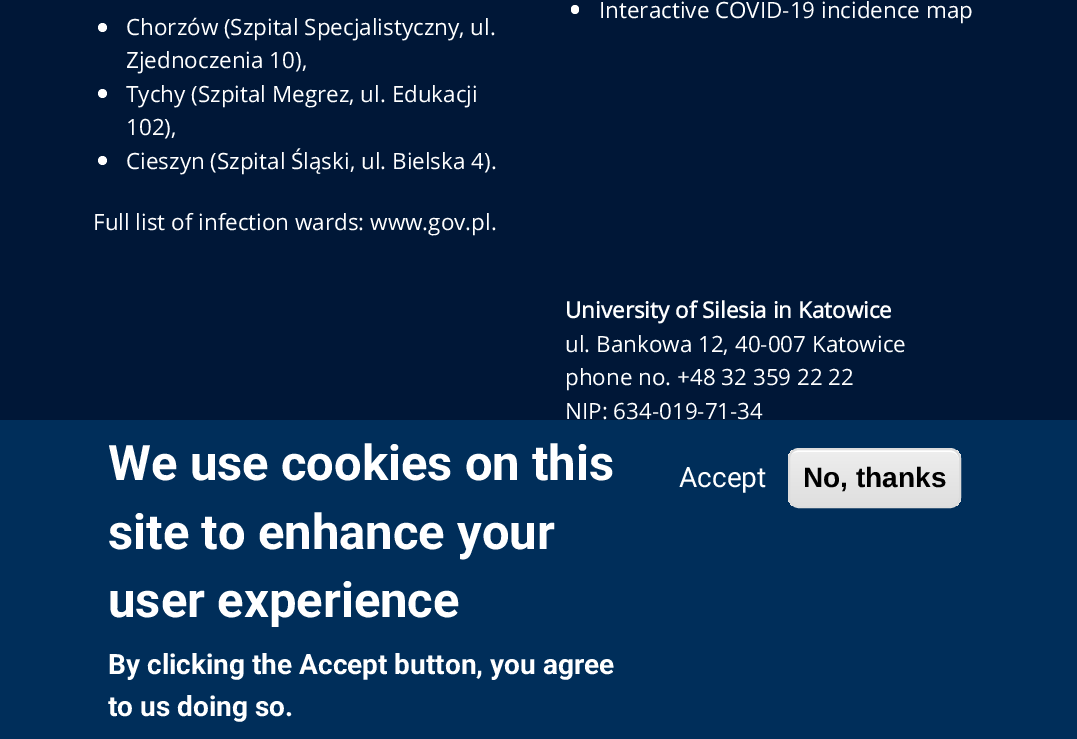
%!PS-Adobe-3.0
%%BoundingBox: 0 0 1077 739
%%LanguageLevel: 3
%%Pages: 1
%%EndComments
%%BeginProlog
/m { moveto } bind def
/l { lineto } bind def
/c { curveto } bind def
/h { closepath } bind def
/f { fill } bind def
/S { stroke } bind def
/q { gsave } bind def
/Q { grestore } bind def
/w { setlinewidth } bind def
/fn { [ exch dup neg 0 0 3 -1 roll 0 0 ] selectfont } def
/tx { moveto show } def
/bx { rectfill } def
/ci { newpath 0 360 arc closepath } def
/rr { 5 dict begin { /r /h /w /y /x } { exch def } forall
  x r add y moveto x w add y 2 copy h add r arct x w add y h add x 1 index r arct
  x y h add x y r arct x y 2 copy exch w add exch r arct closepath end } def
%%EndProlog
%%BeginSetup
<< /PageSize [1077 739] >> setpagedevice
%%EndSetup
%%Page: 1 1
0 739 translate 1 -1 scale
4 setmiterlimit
0 0.09 0.216 setrgbcolor
0 0 1077 739 bx
1 setgray
571 5 8 9 4 rr f
/OpenSans-Regular 22.4 fn
(Interactive COVID-19 incidence map) 599 18 tx
102.5 27.5 4.5 ci f
(Chorzów \(Szpital Specjalistyczny, ul.) 126 35 tx
(Zjednoczenia 10\),) 126 68 tx
102.5 93.5 4.5 ci f
(Tychy \(Szpital Megrez, ul. Edukacji) 126 102 tx
(102\),) 126 135 tx
102.5 160.5 4.5 ci f
(Cieszyn \(Szpital Śląski, ul. Bielska 4\).) 126 169 tx
(Full list of infection wards: www.gov.pl.) 93 230 tx
/OpenSans-Bold 22.4 fn
(University of Silesia in Katowice) 565 318 tx
/OpenSans-Regular 22.4 fn
(ul. Bankowa 12, 40-007 Katowice) 565 352 tx
(phone no. +48 32 359 22 22) 565 385 tx
(NIP: 634-019-71-34) 565 419 tx
0 0.18 0.353 setrgbcolor
0 420 1077 319 bx
/Roboto-Bold 49 fn
1 setgray
(We use cookies on this) 108 480 tx
(site to enhance your) 108 549 tx
(user experience) 108 617 tx
/Roboto-Bold 28 fn
(By clicking the Accept button, you agree) 108 674 tx
(to us doing so.) 108 716 tx
/Roboto-Regular 28 fn
(Accept) 679 487 tx
q
788 448 173 60 11 rr clip newpath
q 788 450 m 961 450 l 961 506 l 788 506 l h clip newpath
<< /ShadingType 2 /ColorSpace /DeviceRGB /Coords [874 450 874 506] /Extend [true true] /Function << /FunctionType 3 /Domain [0 1] /Functions [<< /FunctionType 2 /Domain [0 1] /C0 [0.929 0.929 0.929] /C1 [0.929 0.929 0.929] /N 1 >> << /FunctionType 2 /Domain [0 1] /C0 [0.929 0.929 0.929] /C1 [0.875 0.875 0.875] /N 1 >>] /Bounds [0.05] /Encode [0 1 0 1] >> >> shfill Q
Q
798 452 m 950 452 l 955 452 959 455 959 460 c 959 444 932 450 925 450 c 823 450 l 816 450 789 444 789 460 c 789 455 793 452 798 452 c h f
0.863 setgray
2 w
789 449 171 58 10 rr S
/LiberationSans-Bold 28 fn
0 setgray
(No, thanks) 803 487 tx
showpage
%%EOF
